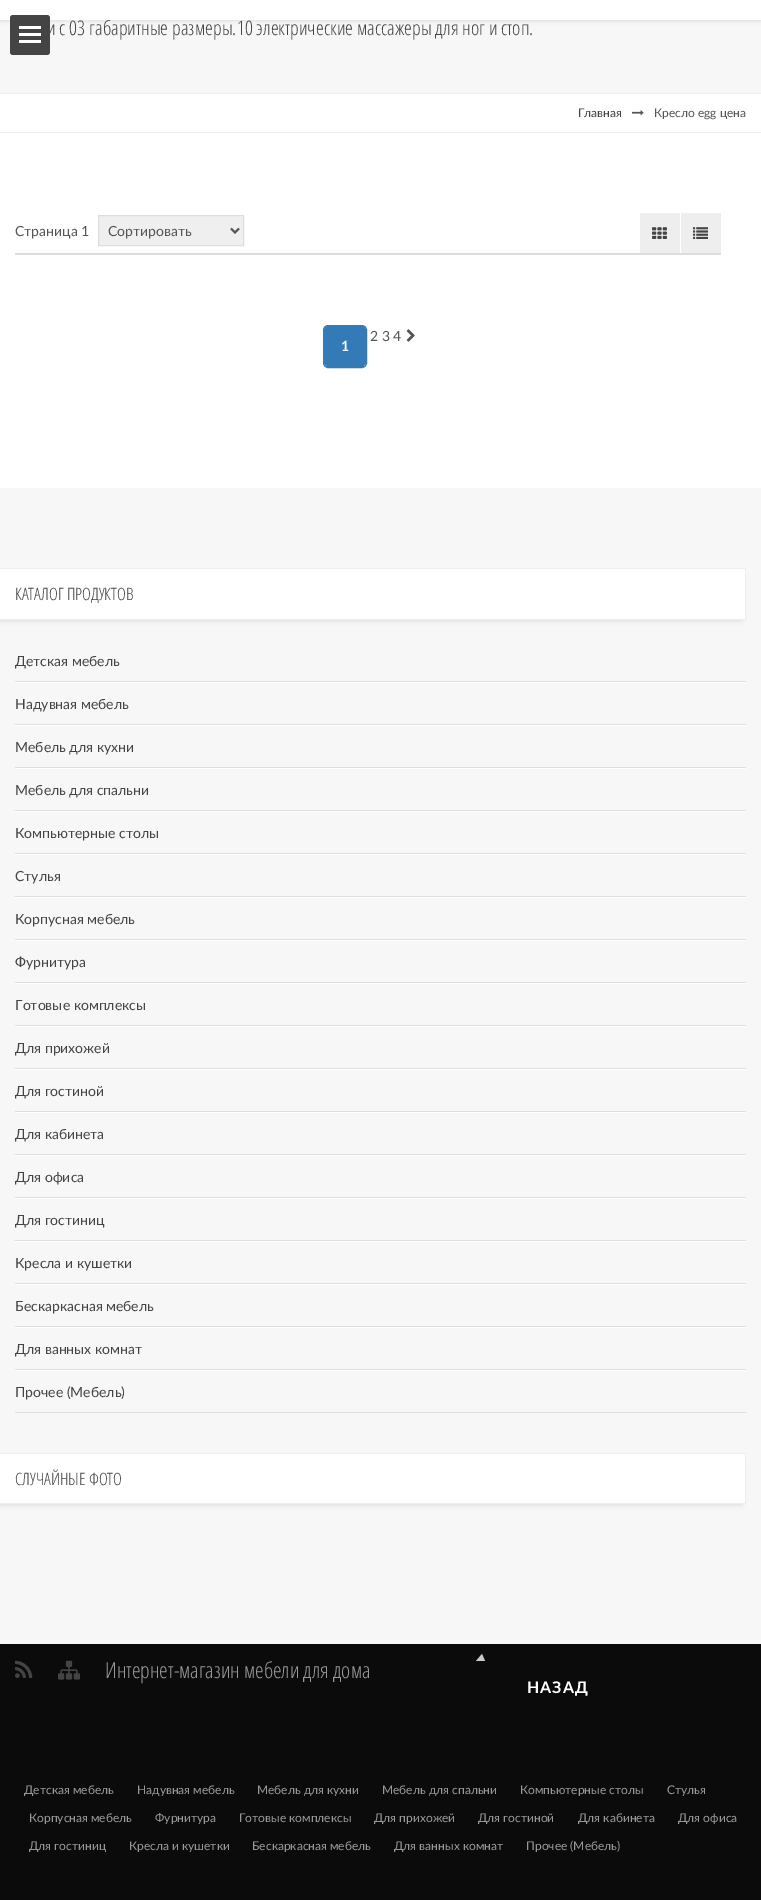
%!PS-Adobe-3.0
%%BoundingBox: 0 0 761 1900
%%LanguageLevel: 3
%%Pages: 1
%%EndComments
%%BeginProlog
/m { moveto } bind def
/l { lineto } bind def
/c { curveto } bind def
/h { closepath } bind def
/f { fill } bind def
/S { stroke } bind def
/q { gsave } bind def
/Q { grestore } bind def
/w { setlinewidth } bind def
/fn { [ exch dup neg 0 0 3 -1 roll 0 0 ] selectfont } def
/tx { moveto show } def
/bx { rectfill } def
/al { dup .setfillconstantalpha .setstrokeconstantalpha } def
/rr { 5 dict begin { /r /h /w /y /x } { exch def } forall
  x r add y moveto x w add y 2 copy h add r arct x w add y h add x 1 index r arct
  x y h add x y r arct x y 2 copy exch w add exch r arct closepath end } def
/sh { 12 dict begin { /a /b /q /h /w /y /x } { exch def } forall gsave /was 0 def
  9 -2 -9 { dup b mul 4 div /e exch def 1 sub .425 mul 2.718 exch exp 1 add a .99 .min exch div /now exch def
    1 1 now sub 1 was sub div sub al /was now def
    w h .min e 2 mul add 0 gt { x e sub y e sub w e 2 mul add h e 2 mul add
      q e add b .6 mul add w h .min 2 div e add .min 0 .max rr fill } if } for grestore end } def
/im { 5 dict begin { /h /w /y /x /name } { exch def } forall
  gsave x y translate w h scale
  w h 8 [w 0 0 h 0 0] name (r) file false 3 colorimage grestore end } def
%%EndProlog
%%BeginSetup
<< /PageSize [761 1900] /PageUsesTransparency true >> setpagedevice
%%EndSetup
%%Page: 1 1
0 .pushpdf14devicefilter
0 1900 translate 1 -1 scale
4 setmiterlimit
1 setgray
0 0 761 1900 bx
0.969 setgray
0 20 761 73 bx
0 setgray
0 1 761 20 0 2 0.1 sh
/OpenSansCondensed-Light 20 fn
0.267 setgray
(и с 03 габаритные размеры.10 электрические массажеры для ног и стоп.) 47 35 tx
1 setgray
0 0 761 20 bx
0.267 setgray
10 15 40 40 3 rr f
1 setgray
19 26 22 3 bx
19 33 22 3 bx
19 40 22 3 bx
0.933 setgray
0 93 761 1 bx
0 132 761 1 bx
/Lato-Regular 12 fn
0.267 setgray
(Главная) 578 117 tx
(image0.raw) 632 110 12 6 im
0.333 setgray
(Кресло egg цена) 654 117 tx
0.867 setgray
15 253 706 2 bx
/Lato-Regular 14 fn
0.333 setgray
(Страница 1) 15 236 tx
0.937 setgray
98.5 215.5 m 243.5 215.5 l 243.5 245.5 l 98.5 245.5 l h q f Q
0.867 setgray
S
0.333 setgray
2 w
231 228.5 m 235 232.5 l 239 228.5 l S
(Сортировать) 108 236 tx
0.933 setgray
640 213 40 40 bx
(image1.raw) 652 227 15 12 im
681 213 40 40 bx
(image2.raw) 693 227 15 12 im
0.333 setgray
(2 3 4) 370 341 tx
(image3.raw) 406 329 9 13 im
0.2 0.478 0.718 setrgbcolor
328 326 m 362 326 l 364 326 366 328 366 330 c 366 363 l 366 365 364 366 362 366 c 328 366 l 326 366 324 365 324 363 c 324 330 l 324 328 326 326 328 326 c h f
1 w
323.5 325.5 43 42 4.5 rr S
326 366 39 1 bx
/Lato-Bold 14 fn
1 setgray
(1) 341 351 tx
0.969 setgray
0 488 761 1156 bx
0 setgray
-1 577 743 44 0 2.5 0.11 sh
1 setgray
0 569 745 50 bx
0.933 setgray
0 568 746 1 bx
745 568 1 52 bx
0 619 746 1 bx
/OpenSansCondensed-Light 17 fn
0.267 setgray
(КАТАЛОГ ПРОДУКТОВ) 15 600 tx
0.871 setgray
15 681 731 1 bx
/Lato-Regular 14 fn
0.267 setgray
(Детская мебель) 15 666 tx
1 setgray
15 682 731 1 bx
0.871 setgray
15 724 731 1 bx
0.267 setgray
(Надувная мебель) 15 709 tx
1 setgray
15 725 731 1 bx
0.871 setgray
15 767 731 1 bx
0.267 setgray
(Мебель для кухни) 15 752 tx
1 setgray
15 768 731 1 bx
0.871 setgray
15 810 731 1 bx
0.267 setgray
(Мебель для спальни) 15 795 tx
1 setgray
15 811 731 1 bx
0.871 setgray
15 853 731 1 bx
0.267 setgray
(Компьютерные столы) 15 838 tx
1 setgray
15 854 731 1 bx
0.871 setgray
15 896 731 1 bx
0.267 setgray
(Стулья) 15 881 tx
1 setgray
15 897 731 1 bx
0.871 setgray
15 939 731 1 bx
0.267 setgray
(Корпусная мебель) 15 924 tx
1 setgray
15 940 731 1 bx
0.871 setgray
15 982 731 1 bx
0.267 setgray
(Фурнитура) 15 967 tx
1 setgray
15 983 731 1 bx
0.871 setgray
15 1025 731 1 bx
0.267 setgray
(Готовые комплексы) 15 1010 tx
1 setgray
15 1026 731 1 bx
0.871 setgray
15 1068 731 1 bx
0.267 setgray
(Для прихожей) 15 1053 tx
1 setgray
15 1069 731 1 bx
0.871 setgray
15 1111 731 1 bx
0.267 setgray
(Для гостиной) 15 1096 tx
1 setgray
15 1112 731 1 bx
0.871 setgray
15 1154 731 1 bx
0.267 setgray
(Для кабинета) 15 1139 tx
1 setgray
15 1155 731 1 bx
0.871 setgray
15 1197 731 1 bx
0.267 setgray
(Для офиса) 15 1182 tx
1 setgray
15 1198 731 1 bx
0.871 setgray
15 1240 731 1 bx
0.267 setgray
(Для гостиниц) 15 1225 tx
1 setgray
15 1241 731 1 bx
0.871 setgray
15 1283 731 1 bx
0.267 setgray
(Кресла и кушетки) 15 1268 tx
1 setgray
15 1284 731 1 bx
0.871 setgray
15 1326 731 1 bx
0.267 setgray
(Бескаркасная мебель) 15 1311 tx
1 setgray
15 1327 731 1 bx
0.871 setgray
15 1369 731 1 bx
0.267 setgray
(Для ванных комнат) 15 1354 tx
1 setgray
15 1370 731 1 bx
0.871 setgray
15 1412 731 1 bx
0.267 setgray
(Прочее \(Мебель\)) 15 1397 tx
0 setgray
-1 1462 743 43 0 2.5 0.11 sh
1 setgray
0 1454 745 49 bx
0.933 setgray
0 1453 746 1 bx
745 1453 1 51 bx
0 1503 746 1 bx
/OpenSansCondensed-Light 17 fn
0.267 setgray
(СЛУЧАЙНЫЕ ФОТО) 15 1485 tx
0.043 setgray
0 1644 761 256 bx
(image4.raw) 15 1660 18 18 im
(image5.raw) 58 1660 22 20 im
/OpenSansCondensed-Light 22 fn
0.6 setgray
(Интернет-магазин мебели для дома) 105 1678 tx
0.792 setgray
485 1661 m 476 1661 l 482 1654 l h f
/Lato-Bold 16 fn
1 setgray
527 1693 m 1 0 (НАЗАД) ashow
/Lato-Regular 12 fn
0.6 setgray
(Детская мебель) 24 1794 tx
(Надувная мебель) 137 1794 tx
(Мебель для кухни) 257 1794 tx
(Мебель для спальни) 382 1794 tx
(Компьютерные столы) 520 1794 tx
(Стулья) 667 1794 tx
(Корпусная мебель) 29 1822 tx
(Фурнитура) 155 1822 tx
(Готовые комплексы) 239 1822 tx
(Для прихожей) 374 1822 tx
(Для гостиной) 478 1822 tx
(Для кабинета) 578 1822 tx
(Для офиса) 678 1822 tx
(Для гостиниц) 29 1850 tx
(Кресла и кушетки) 129 1850 tx
(Бескаркасная мебель) 252 1850 tx
(Для ванных комнат) 394 1850 tx
(Прочее \(Мебель\)) 526 1850 tx
.poppdf14devicefilter showpage
%%EOF
